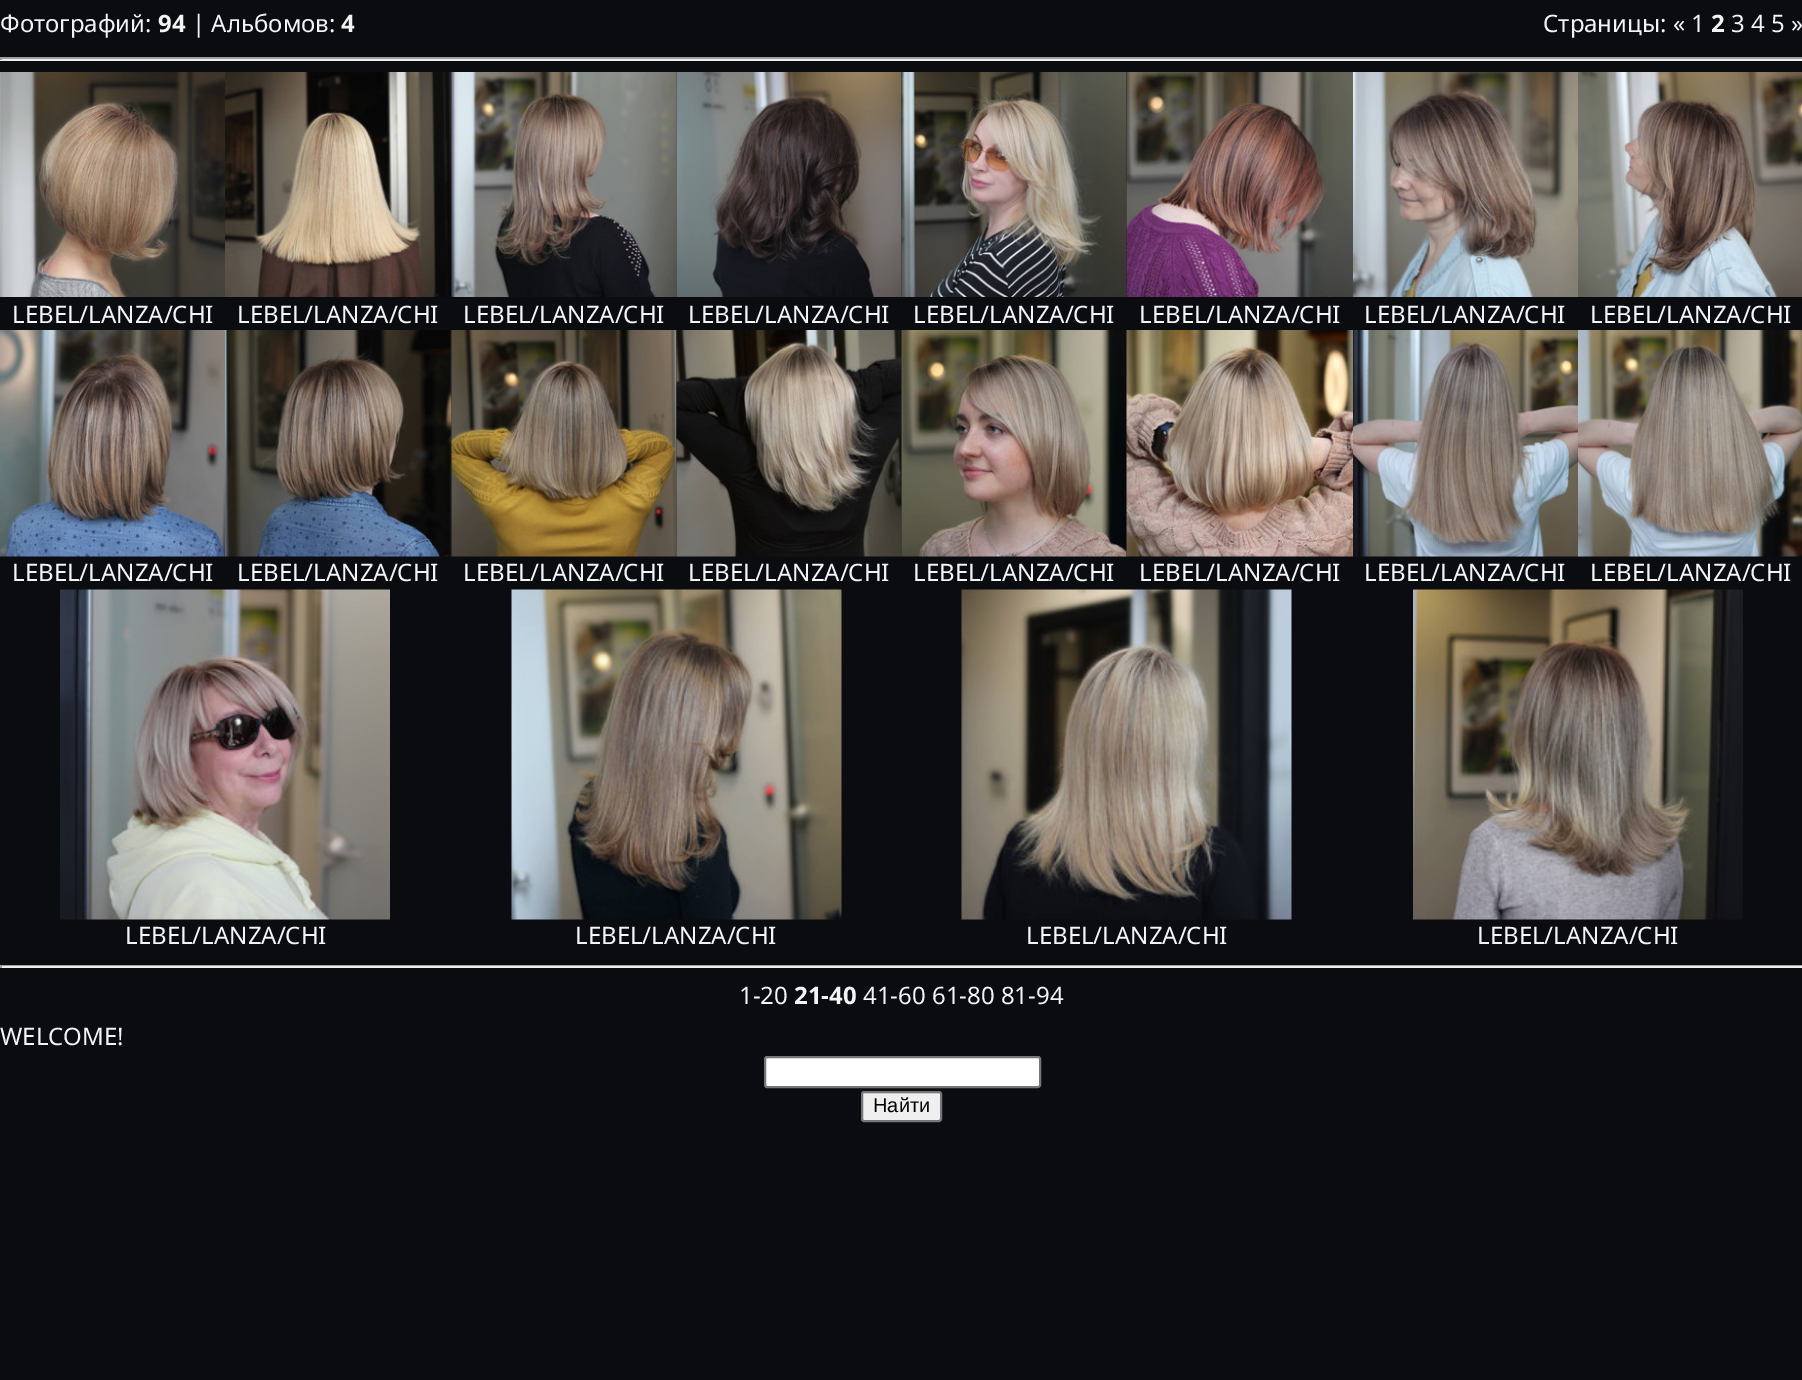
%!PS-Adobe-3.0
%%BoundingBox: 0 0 1802 1380
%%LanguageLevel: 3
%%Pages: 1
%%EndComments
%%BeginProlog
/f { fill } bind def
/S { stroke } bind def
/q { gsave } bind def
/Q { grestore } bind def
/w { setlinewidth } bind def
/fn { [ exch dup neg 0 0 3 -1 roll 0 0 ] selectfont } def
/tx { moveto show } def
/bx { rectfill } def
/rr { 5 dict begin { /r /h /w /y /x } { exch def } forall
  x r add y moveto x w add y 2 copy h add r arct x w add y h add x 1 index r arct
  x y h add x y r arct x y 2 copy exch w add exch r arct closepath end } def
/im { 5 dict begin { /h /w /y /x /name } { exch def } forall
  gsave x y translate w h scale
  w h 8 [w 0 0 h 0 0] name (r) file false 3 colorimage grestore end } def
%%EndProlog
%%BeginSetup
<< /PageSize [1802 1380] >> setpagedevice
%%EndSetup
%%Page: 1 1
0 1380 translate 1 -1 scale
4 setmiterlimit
0.043 0.047 0.063 setrgbcolor
0 0 1802 1380 bx
/NotoSans-Regular 24 fn
0.953 0.957 0.965 setrgbcolor
(Фотографий:) 0 32 tx
/NotoSans-Bold 24 fn
(94) 158 32 tx
/NotoSans-Regular 24 fn
(| Альбомов:) 192 32 tx
/NotoSans-Bold 24 fn
(4) 341 32 tx
/NotoSans-Regular 24 fn
(Страницы: « 1) 1543 32 tx
/NotoSans-Bold 24 fn
(2) 1711 32 tx
/NotoSans-Regular 24 fn
(3 4 5 ») 1731 32 tx
0.624 setgray
0 57 1802 2 bx
0.933 setgray
0 59 1802 2 bx
0.624 setgray
0 57 2 3 bx
(image0.raw) 0 72 225 225 im
0.953 0.957 0.965 setrgbcolor
(LEBEL/LANZA/CHI) 12 323 tx
(image1.raw) 225 72 227 225 im
(LEBEL/LANZA/CHI) 237 323 tx
(image2.raw) 451 72 226 225 im
(LEBEL/LANZA/CHI) 463 323 tx
(image3.raw) 676 72 226 225 im
(LEBEL/LANZA/CHI) 688 323 tx
(image4.raw) 901 72 226 225 im
(LEBEL/LANZA/CHI) 913 323 tx
(image5.raw) 1126 72 227 225 im
(LEBEL/LANZA/CHI) 1139 323 tx
(image6.raw) 1353 72 225 225 im
(LEBEL/LANZA/CHI) 1364 323 tx
(image7.raw) 1578 72 224 225 im
(LEBEL/LANZA/CHI) 1590 323 tx
(image8.raw) 0 330 225 227 im
(LEBEL/LANZA/CHI) 12 581 tx
(image9.raw) 225 330 227 227 im
(LEBEL/LANZA/CHI) 237 581 tx
(image10.raw) 451 330 226 227 im
(LEBEL/LANZA/CHI) 463 581 tx
(image11.raw) 676 330 226 227 im
(LEBEL/LANZA/CHI) 688 581 tx
(image12.raw) 901 330 226 227 im
(LEBEL/LANZA/CHI) 913 581 tx
(image13.raw) 1126 330 227 227 im
(LEBEL/LANZA/CHI) 1139 581 tx
(image14.raw) 1353 330 225 227 im
(LEBEL/LANZA/CHI) 1364 581 tx
(image15.raw) 1578 330 224 227 im
(LEBEL/LANZA/CHI) 1590 581 tx
(image16.raw) 60 589 330 331 im
(LEBEL/LANZA/CHI) 125 944 tx
(image17.raw) 511 589 331 331 im
(LEBEL/LANZA/CHI) 575 944 tx
(image18.raw) 961 589 331 331 im
(LEBEL/LANZA/CHI) 1026 944 tx
(image19.raw) 1413 589 330 331 im
(LEBEL/LANZA/CHI) 1477 944 tx
0.624 setgray
0 965 1802 1 bx
0.933 setgray
0 966 1802 2 bx
0.624 setgray
0 965 2 3 bx
0.953 0.957 0.965 setrgbcolor
(1-20) 739 1004 tx
/NotoSans-Bold 24 fn
(21-40) 794 1004 tx
/NotoSans-Regular 24 fn
(41-60 61-80 81-94) 863 1004 tx
(WELCOME!) 0 1045 tx
1 setgray
765 1057 275 30 2 rr q f Q
0.463 setgray
2 w
S
0.937 setgray
862 1092 79 29 2 rr q f Q
0.463 setgray
S
/LiberationSans-Regular 20 fn
0 setgray
(Найти) 873 1112 tx
showpage
%%EOF
